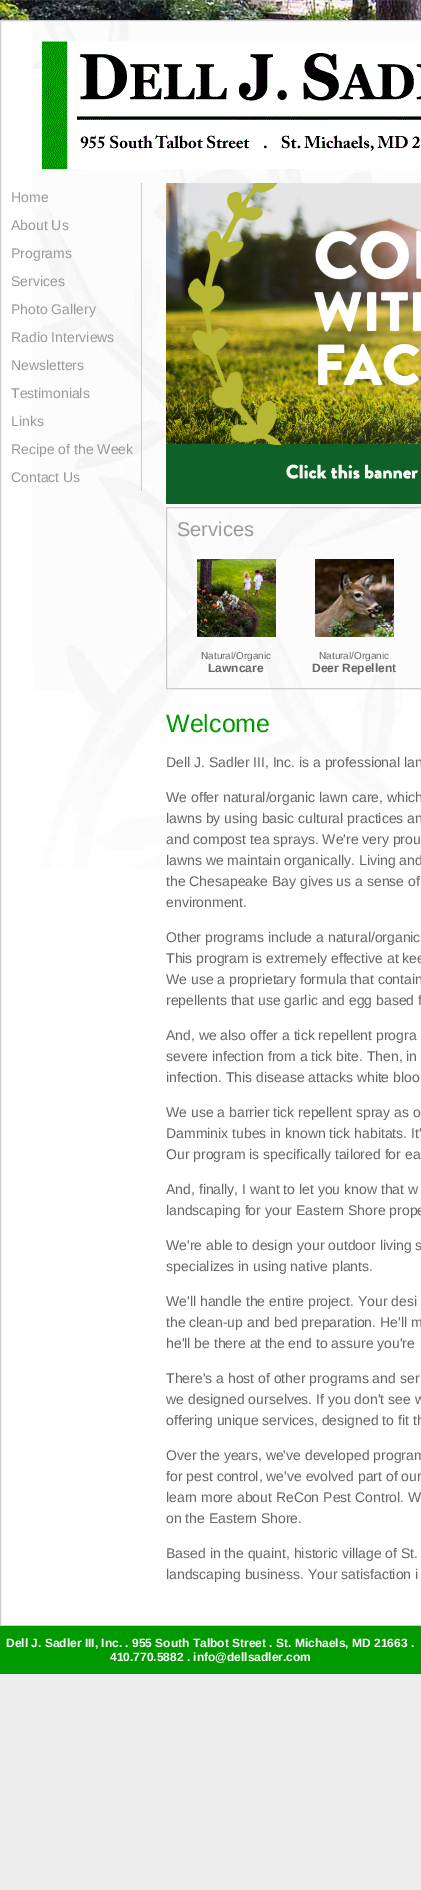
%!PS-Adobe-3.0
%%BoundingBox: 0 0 421 1890
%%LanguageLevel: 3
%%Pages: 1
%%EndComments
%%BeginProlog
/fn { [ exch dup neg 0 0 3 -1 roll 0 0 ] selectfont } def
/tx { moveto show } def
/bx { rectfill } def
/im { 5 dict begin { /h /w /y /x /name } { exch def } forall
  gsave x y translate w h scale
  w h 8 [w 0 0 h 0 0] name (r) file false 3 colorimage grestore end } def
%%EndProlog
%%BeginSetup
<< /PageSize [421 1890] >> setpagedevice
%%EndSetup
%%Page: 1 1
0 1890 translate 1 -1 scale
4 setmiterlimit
0.929 setgray
0 0 421 1890 bx
(image0.raw) 0 0 421 20 im
1 setgray
1 21 420 1604 bx
(image1.raw) 32 21 389 848 im
0.8 setgray
0.5 20.5 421 1605 rectstroke
(image2.raw) 42 41 379 128 im
141 183 1 308 bx
/LiberationSans-Regular 14 fn
0.6 setgray
(Home) 11 202 tx
(About Us) 11 230 tx
(Programs) 11 258 tx
(Services) 11 286 tx
(Photo Gallery) 11 314 tx
(Radio Interviews) 11 342 tx
(Newsletters) 11 370 tx
(Testimonials) 11 398 tx
(Links) 11 426 tx
(Recipe of the Week) 11 454 tx
(Contact Us) 11 482 tx
(image3.raw) 166 183 255 321 im
0.8 setgray
166.5 507.5 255 181 rectstroke
/LiberationSans-Regular 20 fn
0.6 setgray
(Services) 177 536 tx
(image4.raw) 197 559 79 78 im
/LiberationSans-Regular 10 fn
0.4 setgray
(Natural/Organic) 201 659 tx
/LiberationSans-Bold 12 fn
(Lawncare) 208 672 tx
(image5.raw) 315 559 79 78 im
/LiberationSans-Regular 10 fn
(Natural/Organic) 319 659 tx
/LiberationSans-Bold 12 fn
(Deer Repellent) 312 672 tx
/LiberationSans-Regular 25 fn
0 0.6 0 setrgbcolor
(Welcome) 166 732 tx
/LiberationSans-Regular 14 fn
0.4 setgray
(Dell J. Sadler III, Inc. is a professional lan) 166 767 tx
(We offer natural/organic lawn care, which) 166 802 tx
(lawns by using basic cultural practices an) 166 823 tx
(and compost tea sprays. We're very prou) 166 844 tx
(lawns we maintain organically. Living and) 166 865 tx
(the Chesapeake Bay gives us a sense of) 166 886 tx
(environment.) 166 907 tx
(Other programs include a natural/organic) 166 942 tx
(This program is extremely effective at kee) 166 963 tx
(We use a proprietary formula that contain) 166 984 tx
(repellents that use garlic and egg based f) 166 1005 tx
(And, we also offer a tick repellent progra) 166 1040 tx
(severe infection from a tick bite. Then, in) 166 1061 tx
(infection. This disease attacks white bloo) 166 1082 tx
(We use a barrier tick repellent spray as o) 166 1117 tx
(Damminix tubes in known tick habitats. It') 166 1138 tx
(Our program is specifically tailored for ea) 166 1159 tx
(And, finally, I want to let you know that w) 166 1194 tx
(landscaping for your Eastern Shore prope) 166 1215 tx
(We're able to design your outdoor living s) 166 1250 tx
(specializes in using native plants.) 166 1271 tx
(We'll handle the entire project. Your desi) 166 1306 tx
(the clean-up and bed preparation. He'll m) 166 1327 tx
(he'll be there at the end to assure you're) 166 1348 tx
(There's a host of other programs and ser) 166 1383 tx
(we designed ourselves. If you don't see w) 166 1404 tx
(offering unique services, designed to fit th) 166 1425 tx
(Over the years, we've developed program) 166 1460 tx
(for pest control, we've evolved part of our) 166 1481 tx
(learn more about ReCon Pest Control. W) 166 1502 tx
(on the Eastern Shore.) 166 1523 tx
(Based in the quaint, historic village of St.) 166 1558 tx
(landscaping business. Your satisfaction i) 166 1579 tx
0 0.6 0 setrgbcolor
0 1626 421 48 bx
/LiberationSans-Bold 12 fn
1 setgray
(Dell J. Sadler III, Inc. . 955 South Talbot Street . St. Michaels, MD 21663 .) 6 1647 tx
(410.770.5882 . info@dellsadler.com) 110 1661 tx
showpage
%%EOF
